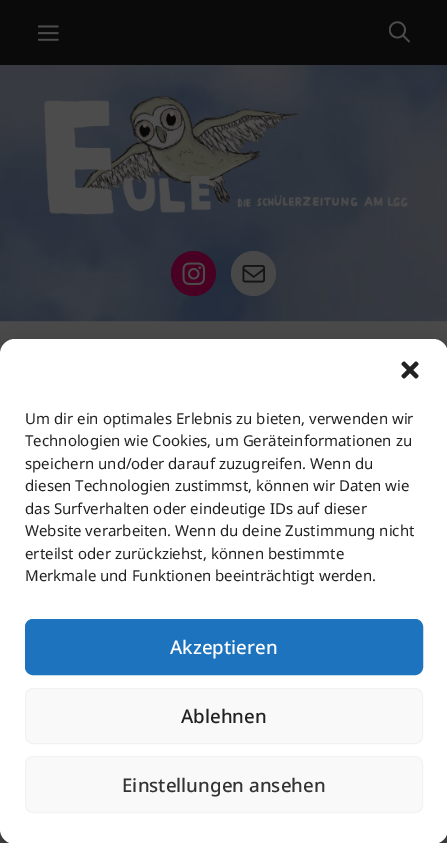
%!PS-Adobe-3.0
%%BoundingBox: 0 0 447 843
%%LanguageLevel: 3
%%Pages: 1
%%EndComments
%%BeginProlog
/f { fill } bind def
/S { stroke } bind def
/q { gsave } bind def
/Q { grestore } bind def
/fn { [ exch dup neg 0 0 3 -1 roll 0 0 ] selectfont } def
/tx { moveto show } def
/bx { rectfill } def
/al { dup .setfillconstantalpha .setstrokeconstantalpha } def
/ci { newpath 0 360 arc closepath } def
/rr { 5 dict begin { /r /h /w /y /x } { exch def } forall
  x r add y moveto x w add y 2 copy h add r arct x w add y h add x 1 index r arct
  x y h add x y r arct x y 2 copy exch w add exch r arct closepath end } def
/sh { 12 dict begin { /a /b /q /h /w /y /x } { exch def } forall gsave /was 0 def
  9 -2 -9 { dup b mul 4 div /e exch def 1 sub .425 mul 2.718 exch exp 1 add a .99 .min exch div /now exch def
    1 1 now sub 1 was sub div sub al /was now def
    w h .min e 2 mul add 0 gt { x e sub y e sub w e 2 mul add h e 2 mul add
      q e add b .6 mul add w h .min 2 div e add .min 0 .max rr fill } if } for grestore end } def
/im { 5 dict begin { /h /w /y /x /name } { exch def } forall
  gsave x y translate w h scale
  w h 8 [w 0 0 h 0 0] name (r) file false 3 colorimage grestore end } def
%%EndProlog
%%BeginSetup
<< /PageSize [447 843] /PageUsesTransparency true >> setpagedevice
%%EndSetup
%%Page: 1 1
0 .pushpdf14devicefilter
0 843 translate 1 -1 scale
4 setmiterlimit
0.29 0.29 0.294 setrgbcolor
0 0 447 843 bx
0.039 setgray
0 0 447 65 bx
(image0.raw) 38 25 21 16 im
(image1.raw) 389 21 21 22 im
(image2.raw) 0 65 447 257 im
(image3.raw) 44 95 364 120 im
0.282 0 0.137 setrgbcolor
193.5 273.5 22.5 ci f
(image4.raw) 182 262 23 23 im
0.282 setgray
253.5 273.5 22.5 ci f
(image5.raw) 242 265 23 18 im
0.302 setgray
0 346 447 497 bx
0 setgray
0 346 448 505 15 4 0.23 sh
0 351 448 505 15 12.5 0.19 sh
1 setgray
0 339 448 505 15 rr f
(image6.raw) 401 361 18 18 im
/NotoSans-Regular 15 fn
0.133 setgray
(Um dir ein optimales Erlebnis zu bieten, verwenden wir) 25 424 tx
(Technologien wie Cookies, um Geräteinformationen zu) 25 446 tx
(speichern und/oder darauf zuzugreifen. Wenn du) 25 469 tx
(diesen Technologien zustimmst, können wir Daten wie) 25 491 tx
(das Surfverhalten oder eindeutige IDs auf dieser) 25 514 tx
(Website verarbeiten. Wenn du deine Zustimmung nicht) 25 536 tx
(erteilst oder zurückziehst, können bestimmte) 25 559 tx
(Merkmale und Funktionen beeinträchtigt werden.) 25 581 tx
0.118 0.451 0.745 setrgbcolor
25.5 619.5 397 55 7.5 rr q f Q
S
/NotoSans-Medium 18.75 fn
1 setgray
(Akzeptieren) 170 654 tx
0.976 setgray
25.5 688.5 397 55 7.5 rr q f Q
0.949 setgray
S
0.133 setgray
(Ablehnen) 181 723 tx
0.976 setgray
25.5 756.5 397 56 7.5 rr q f Q
0.949 setgray
S
0.2 setgray
(Einstellungen ansehen) 122 792 tx
.poppdf14devicefilter showpage
%%EOF
